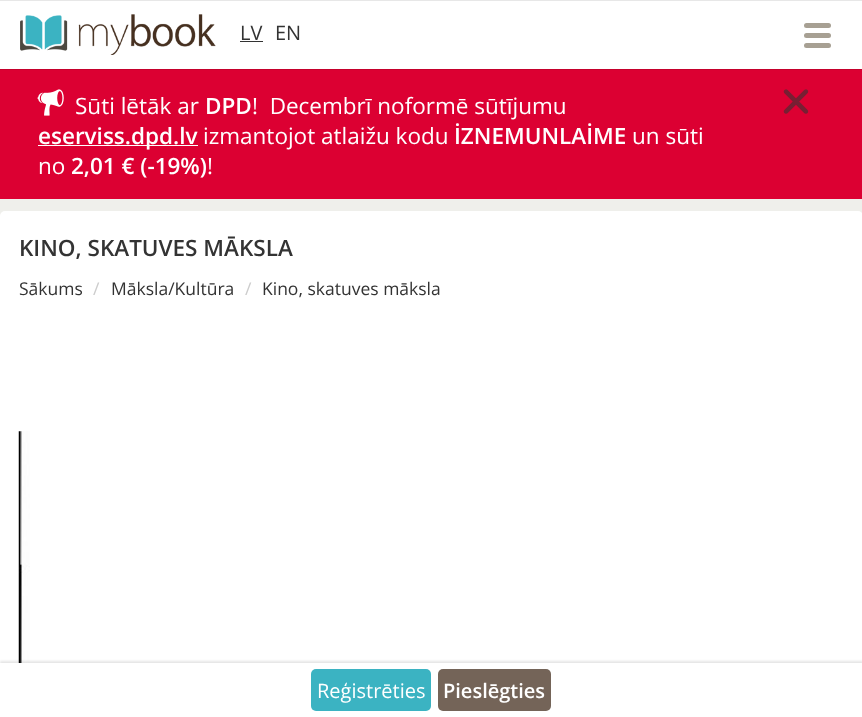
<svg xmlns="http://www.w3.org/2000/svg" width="862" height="717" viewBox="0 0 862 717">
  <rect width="100%" height="100%" fill="#efefeb"/>
  <path d="M0 69h862v130H0z" fill="#dc0032"/>
  <path d="M0 1h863v69H0z" fill="#0000001a" filter="blur(0.5px)"/>
  <path d="M0 1h862v68H0z" fill="#fff"/>
  <path d="M0 0h862v1H0z" fill="#e7e7e7"/>
  <image x="20" y="14" width="196" height="41" href="img/1.png"/>
  <path d="M240 41h23v1H240z" fill="#333"/>
  <rect x="804" y="23" width="27" height="5" rx="2.5" fill="#a7a093"/>
  <rect x="804" y="33" width="27" height="5" rx="2.5" fill="#a7a093"/>
  <rect x="804" y="43" width="27" height="5" rx="2.5" fill="#a7a093"/>
  <image x="37" y="89" width="27" height="27" href="img/2.png"/>
  <path d="M38 145h160v1H38z" fill="#fff"/>
  <image x="783" y="89" width="26" height="25" href="img/3.png"/>
  <rect y="211" width="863" height="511" rx="5" fill="#fff"/>
  <image x="18" y="431" width="12" height="232" href="img/4.png"/>
  <path d="M0 661h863v55H0z" fill="#0000001a" filter="blur(1px)"/>
  <path d="M0 663h862v54H0z" fill="#fff"/>
  <rect x="311" y="669" width="120" height="42" rx="5" fill="#3bb3c2"/>
  <rect x="438" y="669" width="113" height="42" rx="5" fill="#746458"/>
  <g font-family="Open Sans" font-size="20" fill="#333">
    <text x="240" y="40">LV</text>
    <text x="275" y="40">EN</text>
  </g>
  <text x="75" y="114" font-family="Open Sans" font-size="22.5" fill="#fff">Sūti lētāk ar</text>
  <text x="205" y="114" font-family="Open Sans" font-size="22.5" font-weight="600" fill="#fff">DPD</text>
  <text x="252" y="114" font-family="Open Sans" font-size="22.5" fill="#fff" xml:space="preserve">!  Decembrī noformē sūtījumu</text>
  <text x="38" y="144" font-family="Open Sans" font-size="22.5" font-weight="600" fill="#fff">eserviss.dpd.lv</text>
  <text x="203" y="144" font-family="Open Sans" font-size="22.5" fill="#fff">izmantojot atlaižu kodu</text>
  <text x="454" y="144" font-family="Open Sans" font-size="22.5" font-weight="600" fill="#fff">İZNEMUNLAİME</text>
  <g font-family="Open Sans" font-size="22.5" fill="#fff">
    <text x="632" y="144">un sūti</text>
    <text x="38" y="174">no</text>
  </g>
  <text x="71" y="174" font-family="Open Sans" font-size="22.5" font-weight="600" fill="#fff">2,01 € (-19%)</text>
  <text x="207" y="174" font-family="Open Sans" font-size="22.5" fill="#fff">!</text>
  <text x="19" y="256" font-family="Open Sans" font-size="22.5" font-weight="600" fill="#333">KINO, SKATUVES MĀKSLA</text>
  <text x="19" y="295" font-family="Open Sans" font-size="17.5" fill="#333">Sākums</text>
  <text x="93" y="295" font-family="Open Sans" font-size="17.5" fill="#ccc">/</text>
  <text x="111" y="295" font-family="Open Sans" font-size="17.5" fill="#333">Māksla/Kultūra</text>
  <text x="245" y="295" font-family="Open Sans" font-size="17.5" fill="#ccc">/</text>
  <text x="262" y="295" font-family="Open Sans" font-size="17.5" fill="#333">Kino, skatuves māksla</text>
  <text x="317" y="698" font-family="Open Sans" font-size="20" fill="#fff">Reģistrēties</text>
  <text x="443" y="698" font-family="Open Sans" font-size="20" font-weight="600" fill="#fff">Pieslēgties</text>
</svg>
